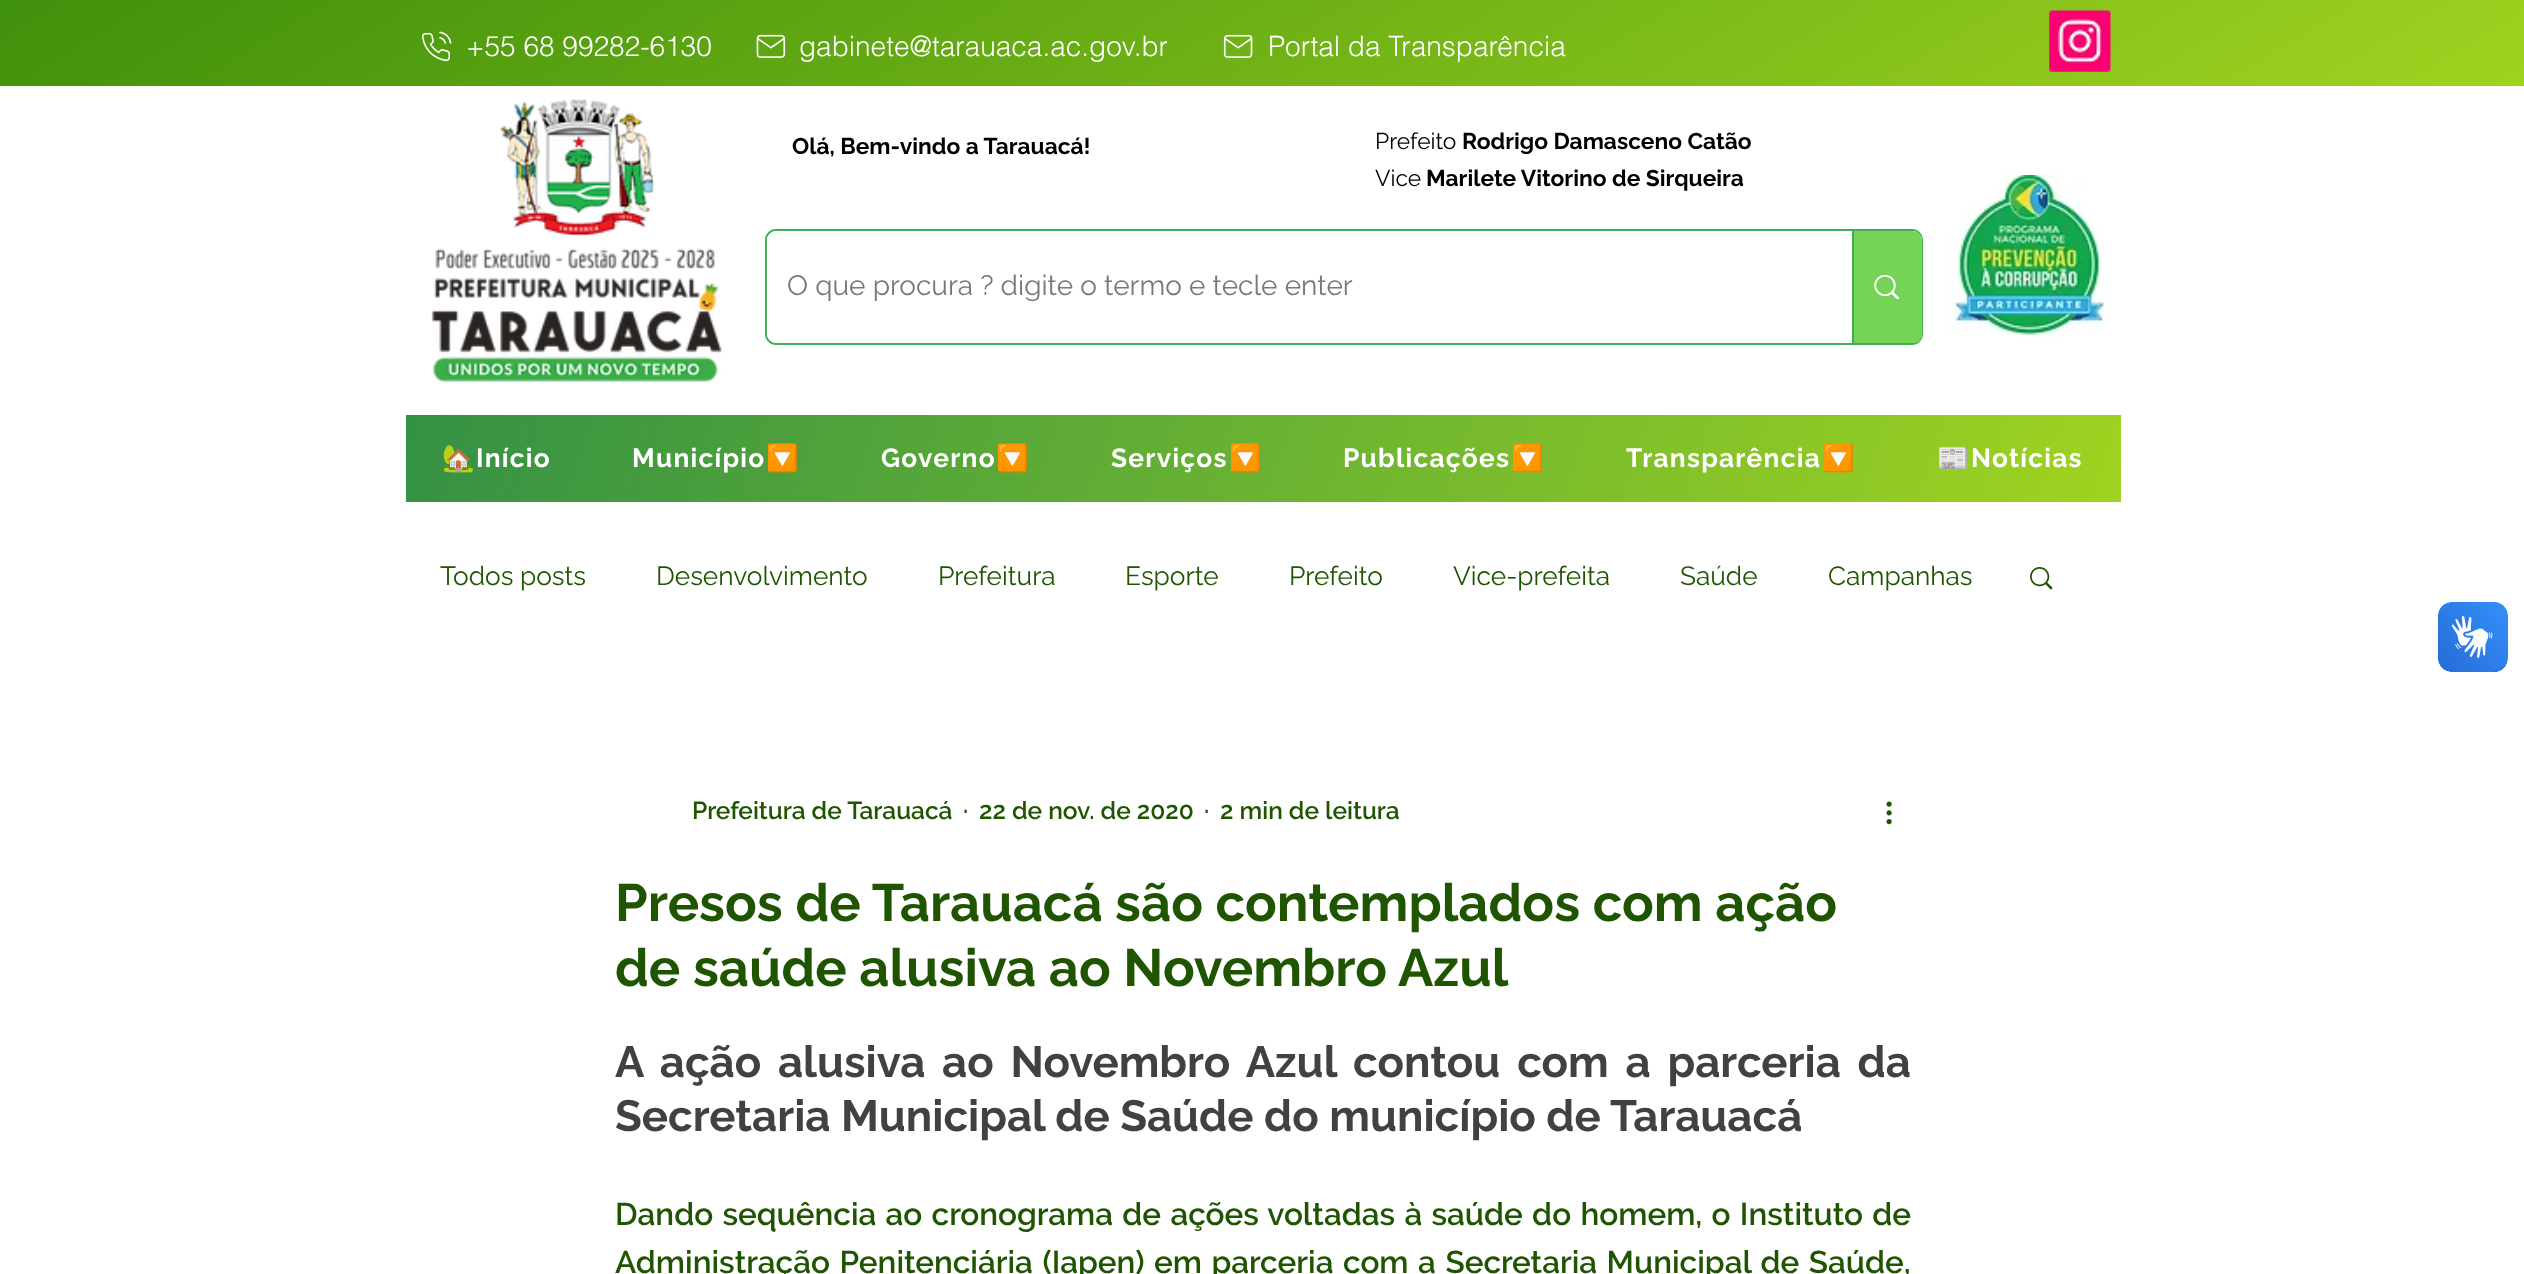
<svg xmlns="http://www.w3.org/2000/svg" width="2524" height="1274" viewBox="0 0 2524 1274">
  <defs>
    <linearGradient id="g1" gradientUnits="userSpaceOnUse" x1="909" y1="-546" x2="1616" y2="632"><stop offset="0" stop-color="#3f900c"/><stop offset="1" stop-color="#a0d320"/></linearGradient>
    <linearGradient id="g2" gradientUnits="userSpaceOnUse" x1="2044" y1="727" x2="483" y2="190"><stop offset="0" stop-color="#a0d320"/><stop offset="1" stop-color="#349144"/></linearGradient>
    <clipPath id="clip1"><path d="M788 270h990v33H788z"/></clipPath>
  </defs>
  <rect width="100%" height="100%" fill="#fff"/>
  <path d="M0 0h2524v86H0z" fill="url(#g1)"/>
  <image x="422" y="31" width="30" height="31" href="img/1.png"/>
  <image x="756" y="34" width="30" height="24" href="img/2.png"/>
  <image x="1223" y="34" width="30" height="24" href="img/3.png"/>
  <image x="2049" y="10" width="62" height="62" href="img/4.png"/>
  <image x="431" y="99" width="291" height="283" href="img/5.png"/>
  <rect x="766" y="230" width="1156" height="114" rx="10" fill="none" stroke="#3fb052" stroke-width="2"/>
  <rect x="767" y="231" width="1155" height="112" rx="9" fill="#fff"/>
  <path d="M1852 231H1913C1918 231 1922 235 1922 240V334C1922 339 1918 343 1913 343H1852Z" fill="#75d355"/>
  <path d="M1852 231h2v112H1852z" fill="#3fb052"/>
  <image x="1874" y="275" width="26" height="24" href="img/6.png"/>
  <image x="1950" y="175" width="155" height="162" href="img/7.png"/>
  <path d="M406 415h1715v87H406z" fill="url(#g2)"/>
  <image x="2030" y="567" width="23" height="23" href="img/8.png"/>
  <image x="1886" y="801" width="6" height="24" href="img/9.png"/>
  <image x="2437" y="602" width="71" height="70" href="img/10.png"/>
  <image x="2438" y="602" width="70" height="70" href="img/11.png"/>
  <g font-family="helvetica" font-size="28" font-weight="300" fill="#fff">
    <text x="466" y="56">+55 68 99282-6130</text>
    <text x="799" y="56">gabinete@tarauaca.ac.gov.br</text>
    <text x="1268" y="56">Portal da Transparência</text>
  </g>
  <text x="792" y="154" font-family="Raleway" font-size="22.75" font-weight="bold" fill="#000">Olá, Bem-vindo a Tarauacá!</text>
  <text x="1375" y="149" font-family="Raleway" font-size="22.75" fill="#000">Prefeito</text>
  <text x="1462" y="149" font-family="Raleway" font-size="22.75" font-weight="bold" fill="#000">Rodrigo Damasceno Catão</text>
  <g clip-path="url(#clip1)">
    <text x="787" y="295" font-family="Raleway" font-size="28" fill="#787878">O que procura ? digite o termo e tecle enter</text>
  </g>
  <text x="1375" y="186" font-family="Raleway" font-size="22.75" fill="#000">Vice</text>
  <text x="1426" y="186" font-family="Raleway" font-size="22.75" font-weight="bold" fill="#000">Marilete Vitorino de Sirqueira</text>
  <text x="442" y="467" font-family="Noto Color Emoji" font-size="26.25" font-weight="bold" letter-spacing="1.25" fill="#fff">🏡</text>
  <g font-family="Raleway" font-size="26.25" font-weight="bold" letter-spacing="1.25" fill="#fff">
    <text x="476" y="467">Início</text>
    <text x="632" y="467">Município</text>
  </g>
  <text x="766" y="467" font-family="Noto Color Emoji" font-size="26.25" font-weight="bold" letter-spacing="1.25" fill="#fff">🔽</text>
  <text x="881" y="467" font-family="Raleway" font-size="26.25" font-weight="bold" letter-spacing="1.25" fill="#fff">Governo</text>
  <text x="996" y="467" font-family="Noto Color Emoji" font-size="26.25" font-weight="bold" letter-spacing="1.25" fill="#fff">🔽</text>
  <text x="1111" y="467" font-family="Raleway" font-size="26.25" font-weight="bold" letter-spacing="1.25" fill="#fff">Serviços</text>
  <text x="1229" y="467" font-family="Noto Color Emoji" font-size="26.25" font-weight="bold" letter-spacing="1.25" fill="#fff">🔽</text>
  <text x="1343" y="467" font-family="Raleway" font-size="26.25" font-weight="bold" letter-spacing="1.25" fill="#fff">Publicações</text>
  <text x="1511" y="467" font-family="Noto Color Emoji" font-size="26.25" font-weight="bold" letter-spacing="1.25" fill="#fff">🔽</text>
  <text x="1626" y="467" font-family="Raleway" font-size="26.25" font-weight="bold" letter-spacing="1.25" fill="#fff">Transparência</text>
  <g font-family="Noto Color Emoji" font-size="26.25" font-weight="bold" letter-spacing="1.25" fill="#fff">
    <text x="1822" y="467">🔽</text>
    <text x="1937" y="467">📰</text>
  </g>
  <text x="1971" y="467" font-family="Raleway" font-size="26.25" font-weight="bold" letter-spacing="1.25" fill="#fff">Notícias</text>
  <g font-family="Raleway" font-size="26.25" fill="#1f5500">
    <text x="440" y="585">Todos posts</text>
    <text x="656" y="585">Desenvolvimento</text>
    <text x="938" y="585">Prefeitura</text>
    <text x="1125" y="585">Esporte</text>
    <text x="1289" y="585">Prefeito</text>
    <text x="1453" y="585">Vice-prefeita</text>
    <text x="1680" y="585">Saúde</text>
    <text x="1828" y="585">Campanhas</text>
  </g>
  <g font-family="Raleway" font-size="24.5" font-weight="600" fill="#1f5500">
    <text x="692" y="819">Prefeitura de Tarauacá</text>
    <text x="963" y="819">·</text>
    <text x="979" y="819">22 de nov. de 2020</text>
    <text x="1204" y="819">·</text>
    <text x="1220" y="819">2 min de leitura</text>
  </g>
  <g font-family="Raleway" font-size="52.5" font-weight="bold" fill="#1f5500">
    <text x="615" y="921">Presos de Tarauacá são contemplados com ação</text>
    <text x="615" y="986">de saúde alusiva ao Novembro Azul</text>
  </g>
  <g font-family="Raleway" font-size="43.75" font-weight="bold" fill="#414141">
    <text x="615" y="1077" word-spacing="6.25">A ação alusiva ao Novembro Azul contou com a parceria da</text>
    <text x="615" y="1131">Secretaria Municipal de Saúde do município de Tarauacá</text>
  </g>
  <g font-family="Raleway" font-size="31.5" font-weight="600" fill="#1f5500">
    <text x="615" y="1225" word-spacing="1.5">Dando sequência ao cronograma de ações voltadas à saúde do homem, o Instituto de</text>
    <text x="615" y="1273" word-spacing="1.75">Administração Penitenciária (Iapen) em parceria com a Secretaria Municipal de Saúde,</text>
  </g>
</svg>
